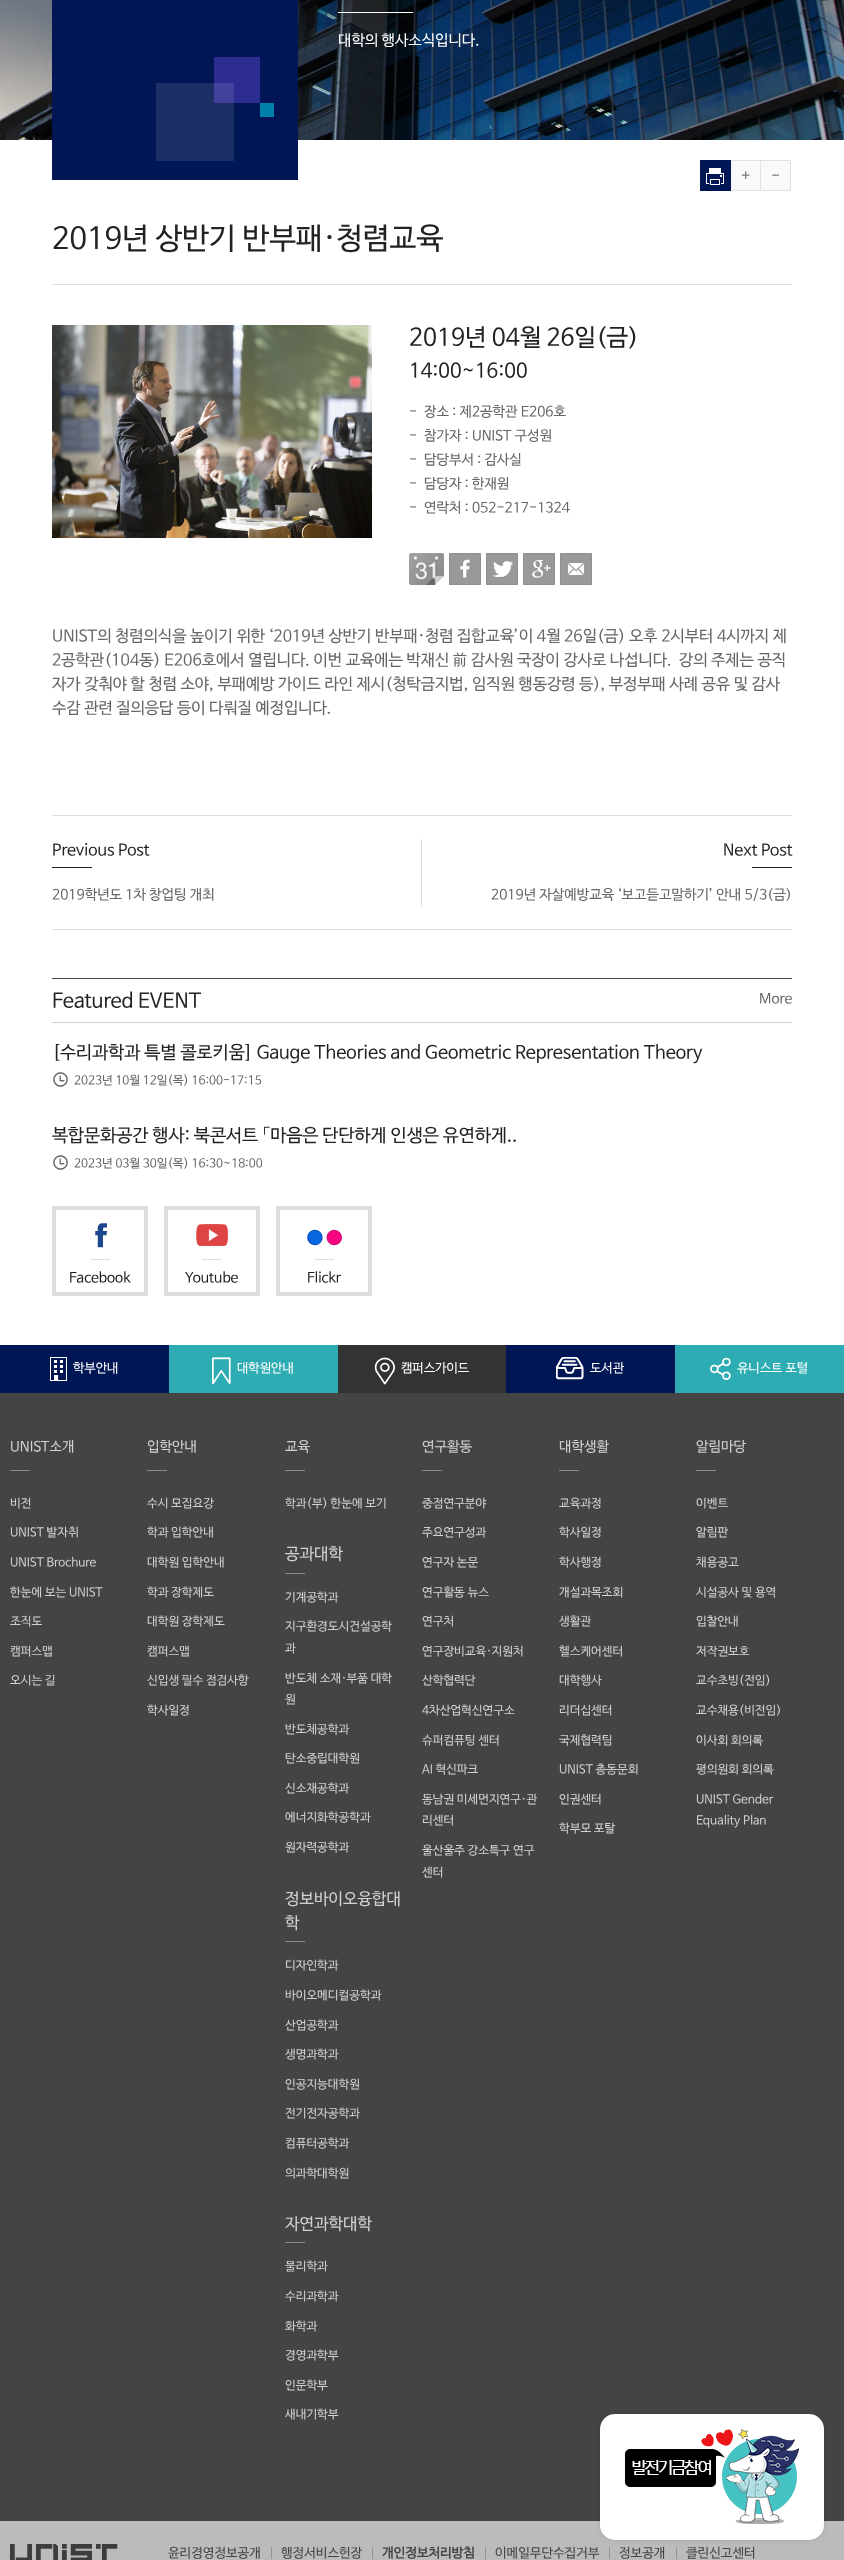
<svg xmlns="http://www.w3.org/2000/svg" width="844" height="2560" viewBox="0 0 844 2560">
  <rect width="100%" height="100%" fill="#fff"/>
  <image x="0" y="0" width="844" height="140" href="img/1.png"/>
  <image x="52" y="0" width="246" height="180" href="img/2.png"/>
  <path d="M338 12h75v1H338z" fill="#fff"/>
  <path d="M730.5 160.5h30v30H730.5z" fill="#f9f9f9" stroke="#e1e1e1"/>
  <image x="700" y="160" width="31" height="31" href="img/3.png"/>
  <path d="M760.5 160.5h30v30H760.5z" fill="#f9f9f9" stroke="#e1e1e1"/>
  <path d="M52 284h740v1H52z" fill="#ddd"/>
  <image x="52" y="325" width="320" height="213" href="img/4.png"/>
  <image x="409" y="553" width="35" height="32" href="img/5.png"/>
  <image x="409" y="555" width="26" height="30" href="img/6.png"/>
  <image x="449" y="553" width="32" height="32" href="img/7.png"/>
  <image x="449" y="553" width="32" height="32" href="img/8.png"/>
  <image x="486" y="553" width="32" height="32" href="img/9.png"/>
  <image x="486" y="553" width="32" height="32" href="img/10.png"/>
  <image x="523" y="553" width="32" height="32" href="img/11.png"/>
  <image x="523" y="553" width="32" height="32" href="img/12.png"/>
  <image x="560" y="553" width="32" height="32" href="img/13.png"/>
  <image x="560" y="553" width="32" height="32" href="img/14.png"/>
  <path d="M52 815h740v1H52z" fill="#ddd"/>
  <path d="M52 929h740v1H52z" fill="#ddd"/>
  <path d="M421 839h1v67H421z" fill="#ddd"/>
  <path d="M52 867h40v1H52z" fill="#222"/>
  <path d="M752 867h40v1H752z" fill="#222"/>
  <path d="M52 978h740v1H52z" fill="#444"/>
  <path d="M52 1022h740v1H52z" fill="#d0d0d0"/>
  <image x="53" y="1072" width="15" height="15" href="img/15.png"/>
  <image x="53" y="1155" width="15" height="15" href="img/15.png"/>
  <path d="M54 1208h92v86H54z" fill="none" stroke="#ddd" stroke-width="4"/>
  <image x="91" y="1223" width="19" height="37" href="img/16.png"/>
  <path d="M166 1208h92v86H166z" fill="none" stroke="#ddd" stroke-width="4"/>
  <image x="196" y="1224" width="32" height="36" href="img/17.png"/>
  <path d="M278 1208h92v86H278z" fill="none" stroke="#ddd" stroke-width="4"/>
  <image x="307" y="1229" width="35" height="31" href="img/18.png"/>
  <path d="M0 1345h169v48H0z" fill="#011655"/>
  <image x="50" y="1357" width="17" height="24" href="img/19.png"/>
  <path d="M169 1345h169v48H169z" fill="#2eacb4"/>
  <image x="212" y="1357" width="19" height="28" href="img/20.png"/>
  <path d="M338 1345h168v48H338z" fill="#333"/>
  <image x="374" y="1357" width="21" height="28" href="img/21.png"/>
  <path d="M506 1345h169v48H506z" fill="#011655"/>
  <image x="556" y="1357" width="28" height="23" href="img/22.png"/>
  <path d="M675 1345h169v48H675z" fill="#2eacb4"/>
  <image x="710" y="1357" width="21" height="23" href="img/23.png"/>
  <path d="M0 1393h844v1128H0z" fill="#444"/>
  <path d="M10 1470h20v1H10z" fill="#8b8b8b"/>
  <path d="M147 1470h20v1H147z" fill="#8b8b8b"/>
  <path d="M285 1470h20v1H285z" fill="#8b8b8b"/>
  <path d="M285 1573h20v1H285z" fill="#8b8b8b"/>
  <path d="M285 1941h20v1H285z" fill="#8b8b8b"/>
  <path d="M285 2242h20v1H285z" fill="#8b8b8b"/>
  <path d="M422 1470h20v1H422z" fill="#8b8b8b"/>
  <path d="M559 1470h20v1H559z" fill="#8b8b8b"/>
  <path d="M696 1470h20v1H696z" fill="#8b8b8b"/>
  <path d="M0 2521h844v39H0z" fill="#bbb"/>
  <image x="10" y="2544" width="108" height="16" href="img/24.png"/>
  <path d="M271 2547h1v12H271z" fill="#939393"/>
  <path d="M372 2547h1v12H372z" fill="#939393"/>
  <path d="M485 2547h1v12H485z" fill="#939393"/>
  <path d="M609 2547h1v12H609z" fill="#939393"/>
  <path d="M676 2547h1v12H676z" fill="#939393"/>
  <rect x="600" y="2414" width="224" height="126" rx="15" fill="#0000001a" filter="blur(2.5px)"/>
  <rect x="600" y="2414" width="224" height="126" rx="15" fill="#fff"/>
  <image x="625" y="2429" width="174" height="95" href="img/25.png"/>
  <text x="338" y="45" font-family="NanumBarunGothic" font-size="15" fill="#fff">대학의 행사소식입니다.</text>
  <g font-family="NanumBarunGothic" font-size="16" fill="#787a86">
    <text x="741" y="181">+</text>
    <text x="771" y="181">-</text>
  </g>
  <text x="52" y="248" font-family="NanumBarunGothic" font-size="30" fill="#222">2019년 상반기 반부패·청렴교육</text>
  <text x="409" y="345" font-family="NanumBarunGothic" font-size="24" fill="#222">2019년 04월 26일(금)</text>
  <text x="409" y="377" font-family="NanumBarunGothic" font-size="20" fill="#222">14:00~16:00</text>
  <g font-family="NanumBarunGothic" font-size="14" fill="#666">
    <text x="409" y="416">-</text>
    <text x="424" y="416">장소 : 제2공학관 E206호</text>
    <text x="409" y="440">-</text>
    <text x="424" y="440">참가자 : UNIST 구성원</text>
    <text x="409" y="464">-</text>
    <text x="424" y="464">담당부서 : 감사실</text>
    <text x="409" y="488">-</text>
    <text x="424" y="488">담당자 : 한재원</text>
    <text x="409" y="512">-</text>
    <text x="424" y="512">연락처 : 052-217-1324</text>
  </g>
  <g font-family="NanumBarunGothic" font-size="16" fill="#666">
    <text x="52" y="641">UNIST의 청렴의식을 높이기 위한 ‘2019년 상반기 반부패·청렴 집합교육’이 4월 26일(금) 오후 2시부터 4시까지 제</text>
    <text x="52" y="665" xml:space="preserve">2공학관(104동) E206호에서 열립니다. 이번 교육에는 박재신 前 감사원 국장이 강사로 나섭니다.  강의 주제는 공직</text>
    <text x="52" y="689">자가 갖춰야 할 청렴 소야, 부패예방 가이드 라인 제시(청탁금지법, 임직원 행동강령 등), 부정부패 사례 공유 및 감사</text>
    <text x="52" y="713">수감 관련 질의응답 등이 다뤄질 예정입니다.</text>
  </g>
  <text x="52" y="855" font-family="NanumBarunGothic" font-size="16" fill="#222">Previous Post</text>
  <text x="52" y="899" font-family="NanumBarunGothic" font-size="14" fill="#666">2019학년도 1차 창업팅 개최</text>
  <text x="723" y="855" font-family="NanumBarunGothic" font-size="16" fill="#222">Next Post</text>
  <text x="491" y="899" font-family="NanumBarunGothic" font-size="14" fill="#666">2019년 자살예방교육 ‘보고듣고말하기’ 안내 5/3(금)</text>
  <text x="52" y="1007" font-family="NanumBarunGothic" font-size="20" fill="#222">Featured EVENT</text>
  <text x="759" y="1003" font-family="NanumBarunGothic" font-size="14" fill="#666">More</text>
  <text x="52" y="1058" font-family="NanumBarunGothic" font-size="18" fill="#222">[수리과학과 특별 콜로키움] Gauge Theories and Geometric Representation Theory</text>
  <text x="74" y="1084" font-family="NanumBarunGothic" font-size="12" fill="#666">2023년 10월 12일(목) 16:00-17:15</text>
  <text x="52" y="1141" font-family="NanumBarunGothic" font-size="18" fill="#222">복합문화공간 행사: 북콘서트 「마음은 단단하게 인생은 유연하게..</text>
  <text x="74" y="1167" font-family="NanumBarunGothic" font-size="12" fill="#666">2023년 03월 30일(목) 16:30~18:00</text>
  <g font-family="NanumBarunGothic" font-size="14" fill="#222">
    <text x="69" y="1282">Facebook</text>
    <text x="185" y="1282">Youtube</text>
    <text x="307" y="1282">Flickr</text>
  </g>
  <g font-family="NanumBarunGothic" font-size="12.75" fill="#fff">
    <text x="73" y="1372">학부안내</text>
    <text x="237" y="1372">대학원안내</text>
    <text x="401" y="1372">캠퍼스가이드</text>
    <text x="590" y="1372">도서관</text>
    <text x="737" y="1372">유니스트 포털</text>
  </g>
  <text x="10" y="1451" font-family="NanumBarunGothic" font-size="14" fill="#d1d1d1">UNIST소개</text>
  <g font-family="NanumBarunGothic" font-size="12" fill="#d1d1d1">
    <text x="10" y="1507">비전</text>
    <text x="10" y="1536">UNIST 발자취</text>
    <text x="10" y="1566">UNIST Brochure</text>
    <text x="10" y="1596">한눈에 보는 UNIST</text>
    <text x="10" y="1625">조직도</text>
    <text x="10" y="1655">캠퍼스맵</text>
    <text x="10" y="1684">오시는 길</text>
  </g>
  <text x="147" y="1451" font-family="NanumBarunGothic" font-size="14" fill="#d1d1d1">입학안내</text>
  <g font-family="NanumBarunGothic" font-size="12" fill="#d1d1d1">
    <text x="147" y="1507">수시 모집요강</text>
    <text x="147" y="1536">학과 입학안내</text>
    <text x="147" y="1566">대학원 입학안내</text>
    <text x="147" y="1596">학과 장학제도</text>
    <text x="147" y="1625">대학원 장학제도</text>
    <text x="147" y="1655">캠퍼스맵</text>
    <text x="147" y="1684">신입생 필수 점검사항</text>
    <text x="147" y="1714">학사일정</text>
  </g>
  <text x="285" y="1451" font-family="NanumBarunGothic" font-size="14" fill="#d1d1d1">교육</text>
  <text x="285" y="1507" font-family="NanumBarunGothic" font-size="12" fill="#d1d1d1">학과(부) 한눈에 보기</text>
  <text x="285" y="1559" font-family="NanumBarunGothic" font-size="16.25" fill="#d1d1d1">공과대학</text>
  <g font-family="NanumBarunGothic" font-size="12" fill="#d1d1d1">
    <text x="285" y="1601">기계공학과</text>
    <text x="285" y="1630">지구환경도시건설공학</text>
    <text x="285" y="1652">과</text>
    <text x="285" y="1682">반도체 소재·부품 대학</text>
    <text x="285" y="1703">원</text>
    <text x="285" y="1733">반도체공학과</text>
    <text x="285" y="1762">탄소중립대학원</text>
    <text x="285" y="1792">신소재공학과</text>
    <text x="285" y="1821">에너지화학공학과</text>
    <text x="285" y="1851">원자력공학과</text>
  </g>
  <g font-family="NanumBarunGothic" font-size="16.25" fill="#d1d1d1">
    <text x="285" y="1904">정보바이오융합대</text>
    <text x="285" y="1928">학</text>
  </g>
  <g font-family="NanumBarunGothic" font-size="12" fill="#d1d1d1">
    <text x="285" y="1969">디자인학과</text>
    <text x="285" y="1999">바이오메디컬공학과</text>
    <text x="285" y="2029">산업공학과</text>
    <text x="285" y="2058">생명과학과</text>
    <text x="285" y="2088">인공지능대학원</text>
    <text x="285" y="2117">전기전자공학과</text>
    <text x="285" y="2147">컴퓨터공학과</text>
    <text x="285" y="2177">의과학대학원</text>
  </g>
  <text x="285" y="2229" font-family="NanumBarunGothic" font-size="16.25" fill="#d1d1d1">자연과학대학</text>
  <g font-family="NanumBarunGothic" font-size="12" fill="#d1d1d1">
    <text x="285" y="2270">물리학과</text>
    <text x="285" y="2300">수리과학과</text>
    <text x="285" y="2330">화학과</text>
    <text x="285" y="2359">경영과학부</text>
    <text x="285" y="2389">인문학부</text>
    <text x="285" y="2418">새내기학부</text>
  </g>
  <text x="422" y="1451" font-family="NanumBarunGothic" font-size="14" fill="#d1d1d1">연구활동</text>
  <g font-family="NanumBarunGothic" font-size="12" fill="#d1d1d1">
    <text x="422" y="1507">중점연구분야</text>
    <text x="422" y="1536">주요연구성과</text>
    <text x="422" y="1566">연구자 논문</text>
    <text x="422" y="1596">연구활동 뉴스</text>
    <text x="422" y="1625">연구처</text>
    <text x="422" y="1655">연구장비교육·지원처</text>
    <text x="422" y="1684">산학협력단</text>
    <text x="422" y="1714">4차산업혁신연구소</text>
    <text x="422" y="1744">슈퍼컴퓨팅 센터</text>
    <text x="422" y="1773">AI 혁신파크</text>
    <text x="422" y="1803">동남권 미세먼지연구·관</text>
    <text x="422" y="1824">리센터</text>
    <text x="422" y="1854">울산울주 강소특구 연구</text>
    <text x="422" y="1876">센터</text>
  </g>
  <text x="559" y="1451" font-family="NanumBarunGothic" font-size="14" fill="#d1d1d1">대학생활</text>
  <g font-family="NanumBarunGothic" font-size="12" fill="#d1d1d1">
    <text x="559" y="1507">교육과정</text>
    <text x="559" y="1536">학사일정</text>
    <text x="559" y="1566">학사행정</text>
    <text x="559" y="1596">개설과목조회</text>
    <text x="559" y="1625">생활관</text>
    <text x="559" y="1655">헬스케어센터</text>
    <text x="559" y="1684">대학행사</text>
    <text x="559" y="1714">리더십센터</text>
    <text x="559" y="1744">국제협력팀</text>
    <text x="559" y="1773">UNIST 총동문회</text>
    <text x="559" y="1803">인권센터</text>
    <text x="559" y="1832">학부모 포탈</text>
  </g>
  <text x="696" y="1451" font-family="NanumBarunGothic" font-size="14" fill="#d1d1d1">알림마당</text>
  <g font-family="NanumBarunGothic" font-size="12" fill="#d1d1d1">
    <text x="696" y="1507">이벤트</text>
    <text x="696" y="1536">알림판</text>
    <text x="696" y="1566">채용공고</text>
    <text x="696" y="1596">시설공사 및 용역</text>
    <text x="696" y="1625">입찰안내</text>
    <text x="696" y="1655">저작권보호</text>
    <text x="696" y="1684">교수초빙(전임)</text>
    <text x="696" y="1714">교수채용(비전임)</text>
    <text x="696" y="1744">이사회 회의록</text>
    <text x="696" y="1773">평의원회 회의록</text>
    <text x="696" y="1803">UNIST Gender</text>
    <text x="696" y="1824">Equality Plan</text>
  </g>
  <g font-family="NanumBarunGothic" font-size="13" fill="#444">
    <text x="168" y="2557">윤리경영정보공개</text>
    <text x="281" y="2557">행정서비스헌장</text>
  </g>
  <text x="382" y="2557" font-family="NanumBarunGothic" font-size="13" font-weight="bold" fill="#444">개인정보처리방침</text>
  <g font-family="NanumBarunGothic" font-size="13" fill="#444">
    <text x="495" y="2557">이메일무단수집거부</text>
    <text x="619" y="2557">정보공개</text>
    <text x="686" y="2557">클린신고센터</text>
  </g>
</svg>
